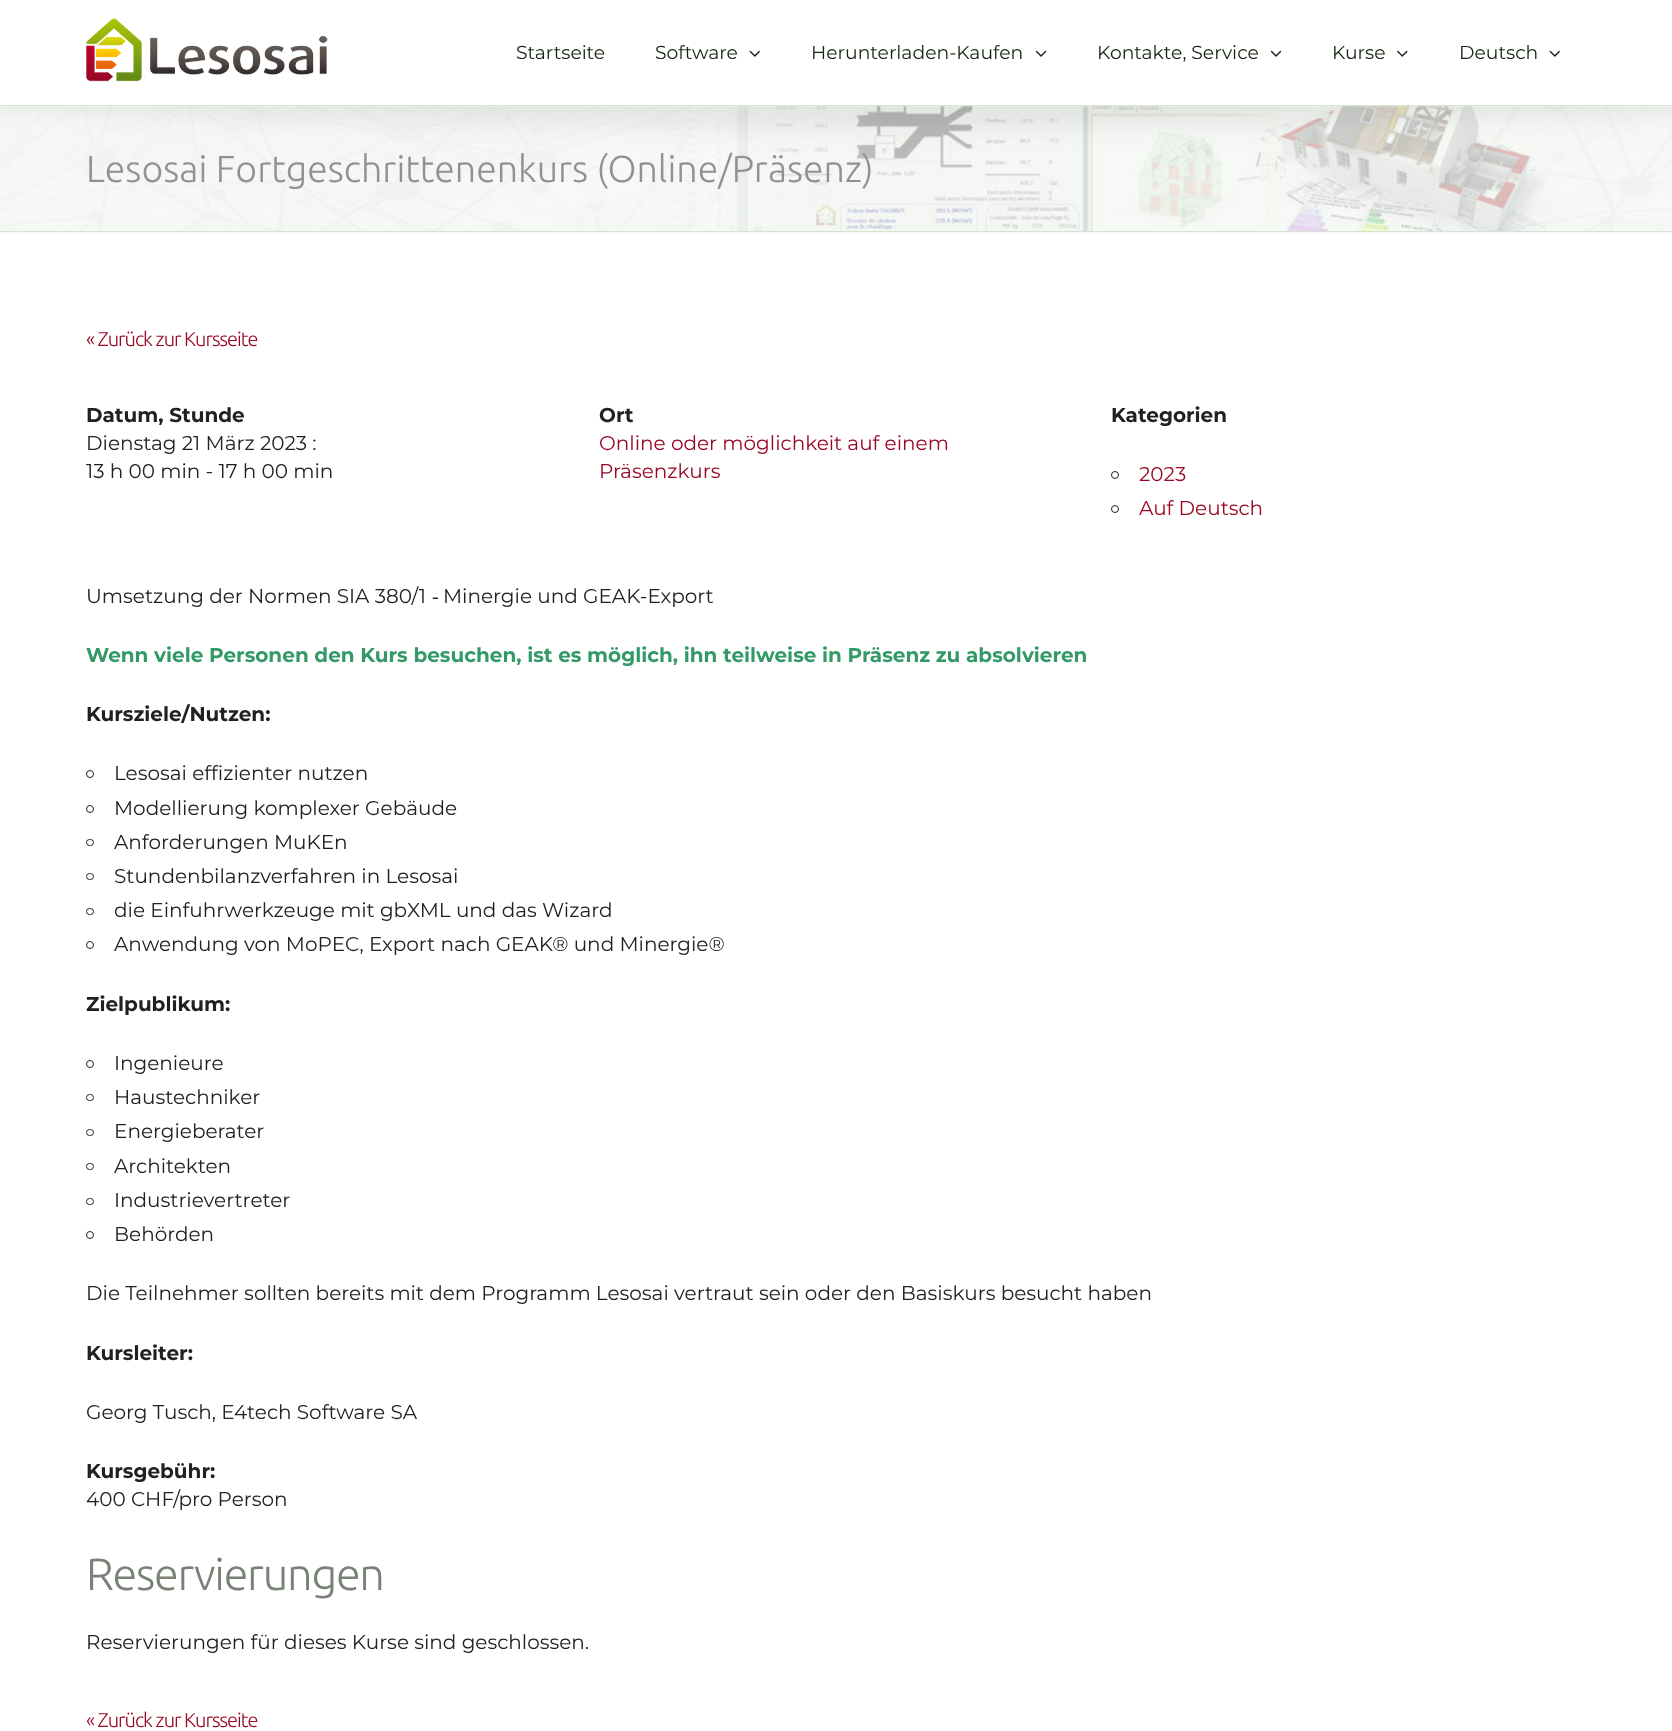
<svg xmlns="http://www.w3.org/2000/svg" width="1672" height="1731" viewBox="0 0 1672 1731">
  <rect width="100%" height="100%" fill="#fff"/>
  <image x="86" y="18" width="242" height="64" href="img/1.png"/>
  <image x="749" y="50" width="11" height="7" href="img/2.png"/>
  <image x="1035" y="50" width="12" height="7" href="img/3.png"/>
  <image x="1270" y="50" width="12" height="7" href="img/3.png"/>
  <image x="1397" y="50" width="11" height="7" href="img/4.png"/>
  <image x="1549" y="50" width="11" height="7" href="img/2.png"/>
  <path d="M0 106h1672v127H0z" fill="#f6f9f5"/>
  <image x="0" y="106" width="1672" height="125" href="img/5.png"/>
  <path d="M0 105h1672v1H0z" fill="#d5e4d0"/>
  <path d="M0 231h1672v1H0z" fill="#d5e4d0"/>
  <circle cx="1115" cy="475" r="3.5" fill="none" stroke="#212121"/>
  <circle cx="1115" cy="509" r="3.5" fill="none" stroke="#212121"/>
  <circle cx="90" cy="774" r="3.5" fill="none" stroke="#212121"/>
  <circle cx="90" cy="809" r="3.5" fill="none" stroke="#212121"/>
  <rect x="86.5" y="839.5" width="7" height="6" rx="3" fill="none" stroke="#212121"/>
  <rect x="86.5" y="873.5" width="7" height="6" rx="3" fill="none" stroke="#212121"/>
  <rect x="86.5" y="908.5" width="7" height="6" rx="3" fill="none" stroke="#212121"/>
  <circle cx="90" cy="945" r="3.5" fill="none" stroke="#212121"/>
  <circle cx="90" cy="1064" r="3.5" fill="none" stroke="#212121"/>
  <rect x="86.5" y="1094.5" width="7" height="6" rx="3" fill="none" stroke="#212121"/>
  <rect x="86.5" y="1129.5" width="7" height="6" rx="3" fill="none" stroke="#212121"/>
  <rect x="86.5" y="1163.5" width="7" height="6" rx="3" fill="none" stroke="#212121"/>
  <rect x="86.5" y="1198.5" width="7" height="6" rx="3" fill="none" stroke="#212121"/>
  <circle cx="90" cy="1235" r="3.5" fill="none" stroke="#212121"/>
  <g font-family="Montserrat" font-size="18.75" fill="#162511">
    <text x="516" y="59">Startseite</text>
    <text x="655" y="59">Software</text>
    <text x="811" y="59">Herunterladen-Kaufen</text>
    <text x="1097" y="59">Kontakte, Service</text>
    <text x="1332" y="59">Kurse</text>
    <text x="1459" y="59">Deutsch</text>
  </g>
  <text x="86" y="182" font-family="Ubuntu" font-size="37.5" font-weight="300" fill="#8f928e">Lesosai Fortgeschrittenenkurs (Online/Präsenz)</text>
  <text x="86" y="346" font-family="Ubuntu" font-size="20" font-weight="300" letter-spacing="-1" fill="#990824">« Zurück zur Kursseite</text>
  <text x="86" y="422" font-family="Montserrat" font-size="20" font-weight="bold" fill="#212121">Datum, Stunde</text>
  <g font-family="Montserrat" font-size="20" fill="#212121">
    <text x="86" y="450">Dienstag 21 März 2023 :</text>
    <text x="86" y="478">13 h 00 min - 17 h 00 min</text>
  </g>
  <text x="599" y="422" font-family="Montserrat" font-size="20" font-weight="bold" fill="#212121">Ort</text>
  <g font-family="Montserrat" font-size="20" fill="#990824">
    <text x="599" y="450">Online oder möglichkeit auf einem</text>
    <text x="599" y="478">Präsenzkurs</text>
  </g>
  <text x="1111" y="422" font-family="Montserrat" font-size="20" font-weight="bold" fill="#212121">Kategorien</text>
  <g font-family="Montserrat" font-size="20" fill="#990824">
    <text x="1139" y="481">2023</text>
    <text x="1139" y="515">Auf Deutsch</text>
  </g>
  <text x="86" y="603" font-family="Montserrat" font-size="20" fill="#212121">Umsetzung der Normen SIA 380/1</text>
  <text x="432" y="603" font-family="Liberation Serif" font-size="20" fill="#212121">‐</text>
  <text x="443" y="603" font-family="Montserrat" font-size="20" fill="#212121">Minergie und GEAK-Export</text>
  <text x="86" y="662" font-family="Montserrat" font-size="20" font-weight="bold" fill="#396">Wenn viele Personen den Kurs besuchen, ist es möglich, ihn teilweise in Präsenz zu absolvieren</text>
  <text x="86" y="721" font-family="Montserrat" font-size="20" font-weight="bold" fill="#212121">Kursziele/Nutzen:</text>
  <g font-family="Montserrat" font-size="20" fill="#212121">
    <text x="114" y="780">Lesosai effizienter nutzen</text>
    <text x="114" y="815">Modellierung komplexer Gebäude</text>
    <text x="114" y="849">Anforderungen MuKEn</text>
    <text x="114" y="883">Stundenbilanzverfahren in Lesosai</text>
    <text x="114" y="917">die Einfuhrwerkzeuge mit gbXML und das Wizard</text>
    <text x="114" y="951">Anwendung von MoPEC, Export nach GEAK® und Minergie®</text>
  </g>
  <text x="86" y="1011" font-family="Montserrat" font-size="20" font-weight="bold" fill="#212121">Zielpublikum:</text>
  <g font-family="Montserrat" font-size="20" fill="#212121">
    <text x="114" y="1070">Ingenieure</text>
    <text x="114" y="1104">Haustechniker</text>
    <text x="114" y="1138">Energieberater</text>
    <text x="114" y="1173">Architekten</text>
    <text x="114" y="1207">Industrievertreter</text>
    <text x="114" y="1241">Behörden</text>
    <text x="86" y="1300">Die Teilnehmer sollten bereits mit dem Programm Lesosai vertraut sein oder den Basiskurs besucht haben</text>
  </g>
  <text x="86" y="1360" font-family="Montserrat" font-size="20" font-weight="bold" fill="#212121">Kursleiter:</text>
  <text x="86" y="1419" font-family="Montserrat" font-size="20" fill="#212121">Georg Tusch, E4tech Software SA</text>
  <text x="86" y="1478" font-family="Montserrat" font-size="20" font-weight="bold" fill="#212121">Kursgebühr:</text>
  <text x="86" y="1506" font-family="Montserrat" font-size="20" fill="#212121">400 CHF/pro Person</text>
  <text x="86" y="1590" font-family="Ubuntu" font-size="45" font-weight="300" letter-spacing="-1.25" fill="#798276">Reservierungen</text>
  <text x="86" y="1649" font-family="Montserrat" font-size="20" fill="#212121">Reservierungen für dieses Kurse sind geschlossen.</text>
  <text x="86" y="1727" font-family="Ubuntu" font-size="20" font-weight="300" letter-spacing="-1" fill="#990824">« Zurück zur Kursseite</text>
</svg>
